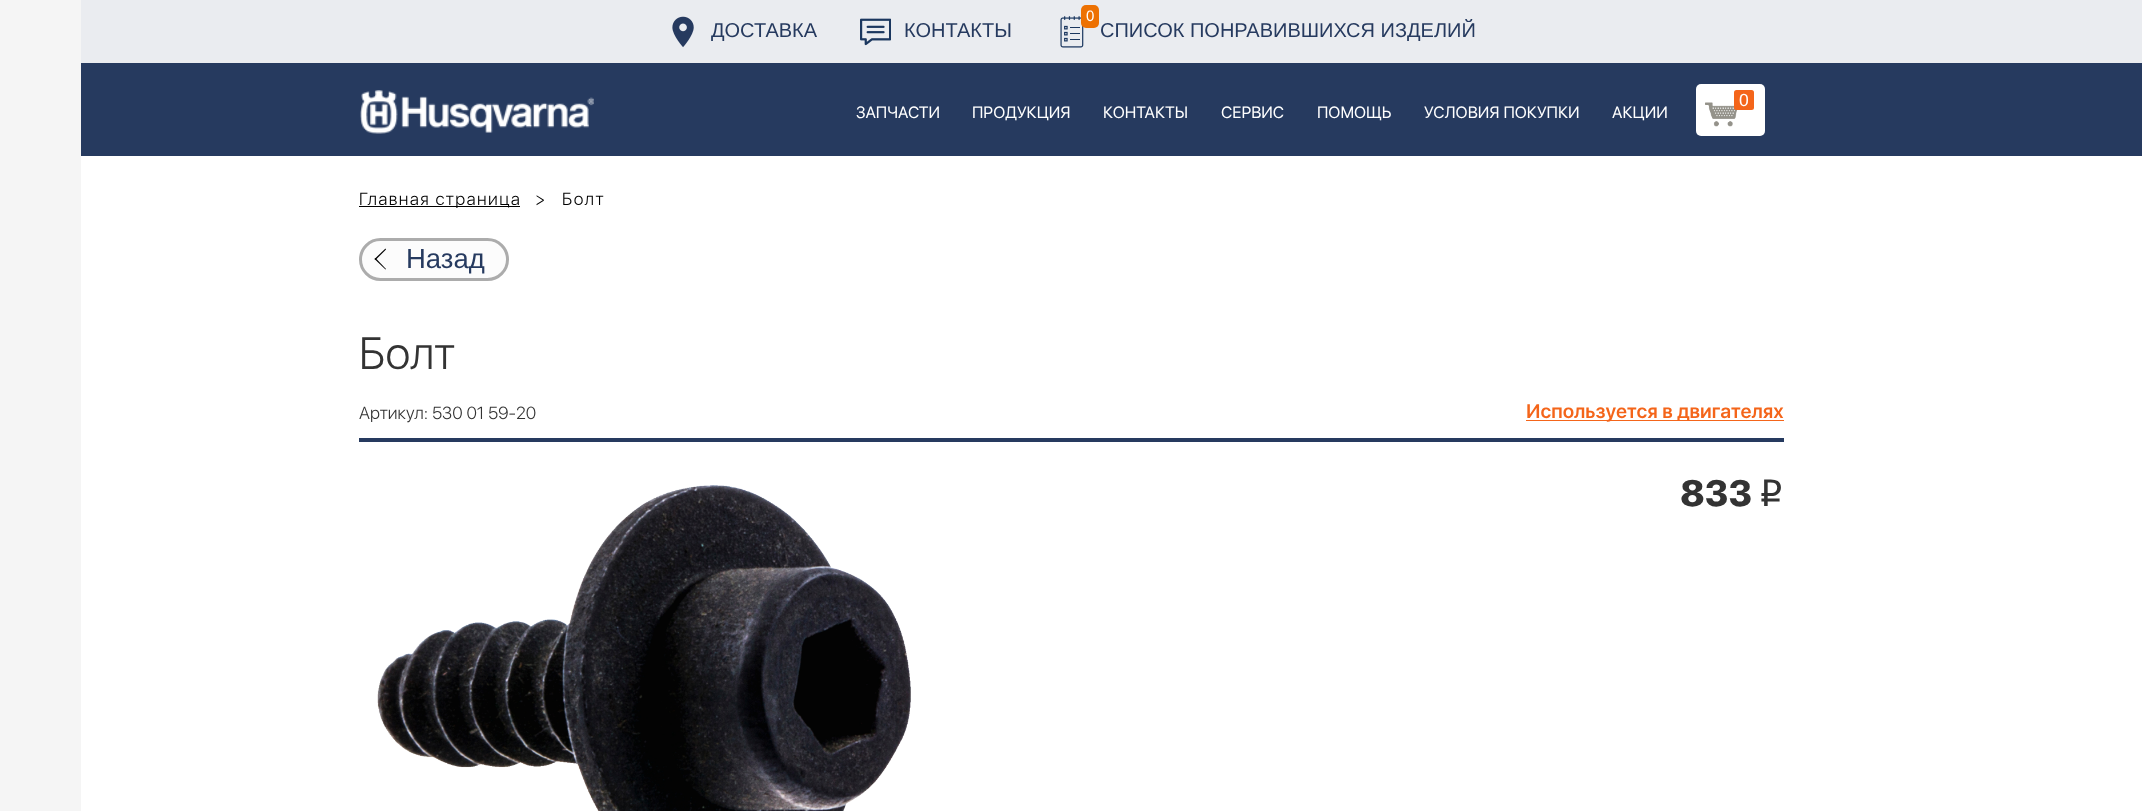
<svg xmlns="http://www.w3.org/2000/svg" width="2142" height="811" viewBox="0 0 2142 811">
  <rect width="100%" height="100%" fill="#fff"/>
  <path d="M0 0h81v811H0z" fill="#f5f5f5"/>
  <path d="M81 0h2061v63H81z" fill="#eaecf0"/>
  <image x="672" y="16" width="22" height="32" href="img/1.png"/>
  <image x="860" y="18" width="31" height="28" href="img/2.png"/>
  <image x="1060" y="16" width="24" height="32" href="img/3.png"/>
  <rect x="1081" y="5" width="18" height="23" rx="5" fill="#ed7102"/>
  <path d="M81 63h2061v93H81z" fill="#263a5f"/>
  <image x="360" y="90" width="234" height="44" href="img/4.png"/>
  <rect x="1696" y="84" width="69" height="52" rx="5" fill="#fff"/>
  <image x="1705" y="102" width="32" height="25" href="img/5.png"/>
  <rect x="1734" y="90" width="20" height="20" rx="2.5" fill="#f4651a"/>
  <path d="M359 206h161v1H359z" fill="#000"/>
  <rect x="360.5" y="239.5" width="147" height="40" rx="20" fill="#fcfcfc" stroke="#acacac" stroke-width="3"/>
  <path d="M374.5 259L385.5 248.5L386 249.5L375.5 260Z" fill="#000"/>
  <path d="M374.5 259L375.5 258L386 269L385.5 269.5Z" fill="#000"/>
  <path d="M1526 420h258v1H1526z" fill="#f4651a"/>
  <path d="M359 438h1425v4H359z" fill="#263a5f"/>
  <image x="377" y="485" width="534" height="326" href="img/6.png"/>
  <g font-family="Liberation Sans" font-size="20" fill="#263a5f">
    <text x="711" y="37">ДОСТАВКА</text>
    <text x="904" y="37">КОНТАКТЫ</text>
  </g>
  <text x="1086" y="21" font-family="Liberation Sans" font-size="15" fill="#fff">0</text>
  <text x="1100" y="37" font-family="Liberation Sans" font-size="20" fill="#263a5f">СПИСОК ПОНРАВИВШИХСЯ ИЗДЕЛИЙ</text>
  <text x="1739" y="106" font-family="Liberation Sans" font-size="17.5" fill="#fff">0</text>
  <g font-family="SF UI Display" font-size="16.25" fill="#fff">
    <text x="856" y="118">ЗАПЧАСТИ</text>
    <text x="972" y="118">ПРОДУКЦИЯ</text>
    <text x="1103" y="118">КОНТАКТЫ</text>
    <text x="1221" y="118">СЕРВИС</text>
    <text x="1317" y="118">ПОМОЩЬ</text>
    <text x="1424" y="118">УСЛОВИЯ ПОКУПКИ</text>
    <text x="1612" y="118">АКЦИИ</text>
  </g>
  <g font-family="SF UI Display" font-size="17.5" font-weight="300" letter-spacing="1.4" fill="#000">
    <text x="359" y="205">Главная страница</text>
    <text x="535" y="205">&gt;</text>
    <text x="562" y="205">Болт</text>
  </g>
  <text x="406" y="268" font-family="Liberation Sans" font-size="27.5" fill="#263a5f">Назад</text>
  <text x="359" y="369" font-family="SF UI Display" font-size="45" font-weight="300" fill="#333">Болт</text>
  <text x="359" y="419" font-family="SF UI Display" font-size="17.5" font-weight="300" fill="#333">Артикул: 530 01 59-20</text>
  <text x="1526" y="418" font-family="SF UI Display" font-size="20" font-weight="600" fill="#f4651a">Используется в двигателях</text>
  <text x="1680" y="506" font-family="SF UI Display" font-size="38" font-weight="900" fill="#333">833</text>
  <text x="1758" y="506" font-family="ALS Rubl" font-size="38" fill="#333">i</text>
</svg>
